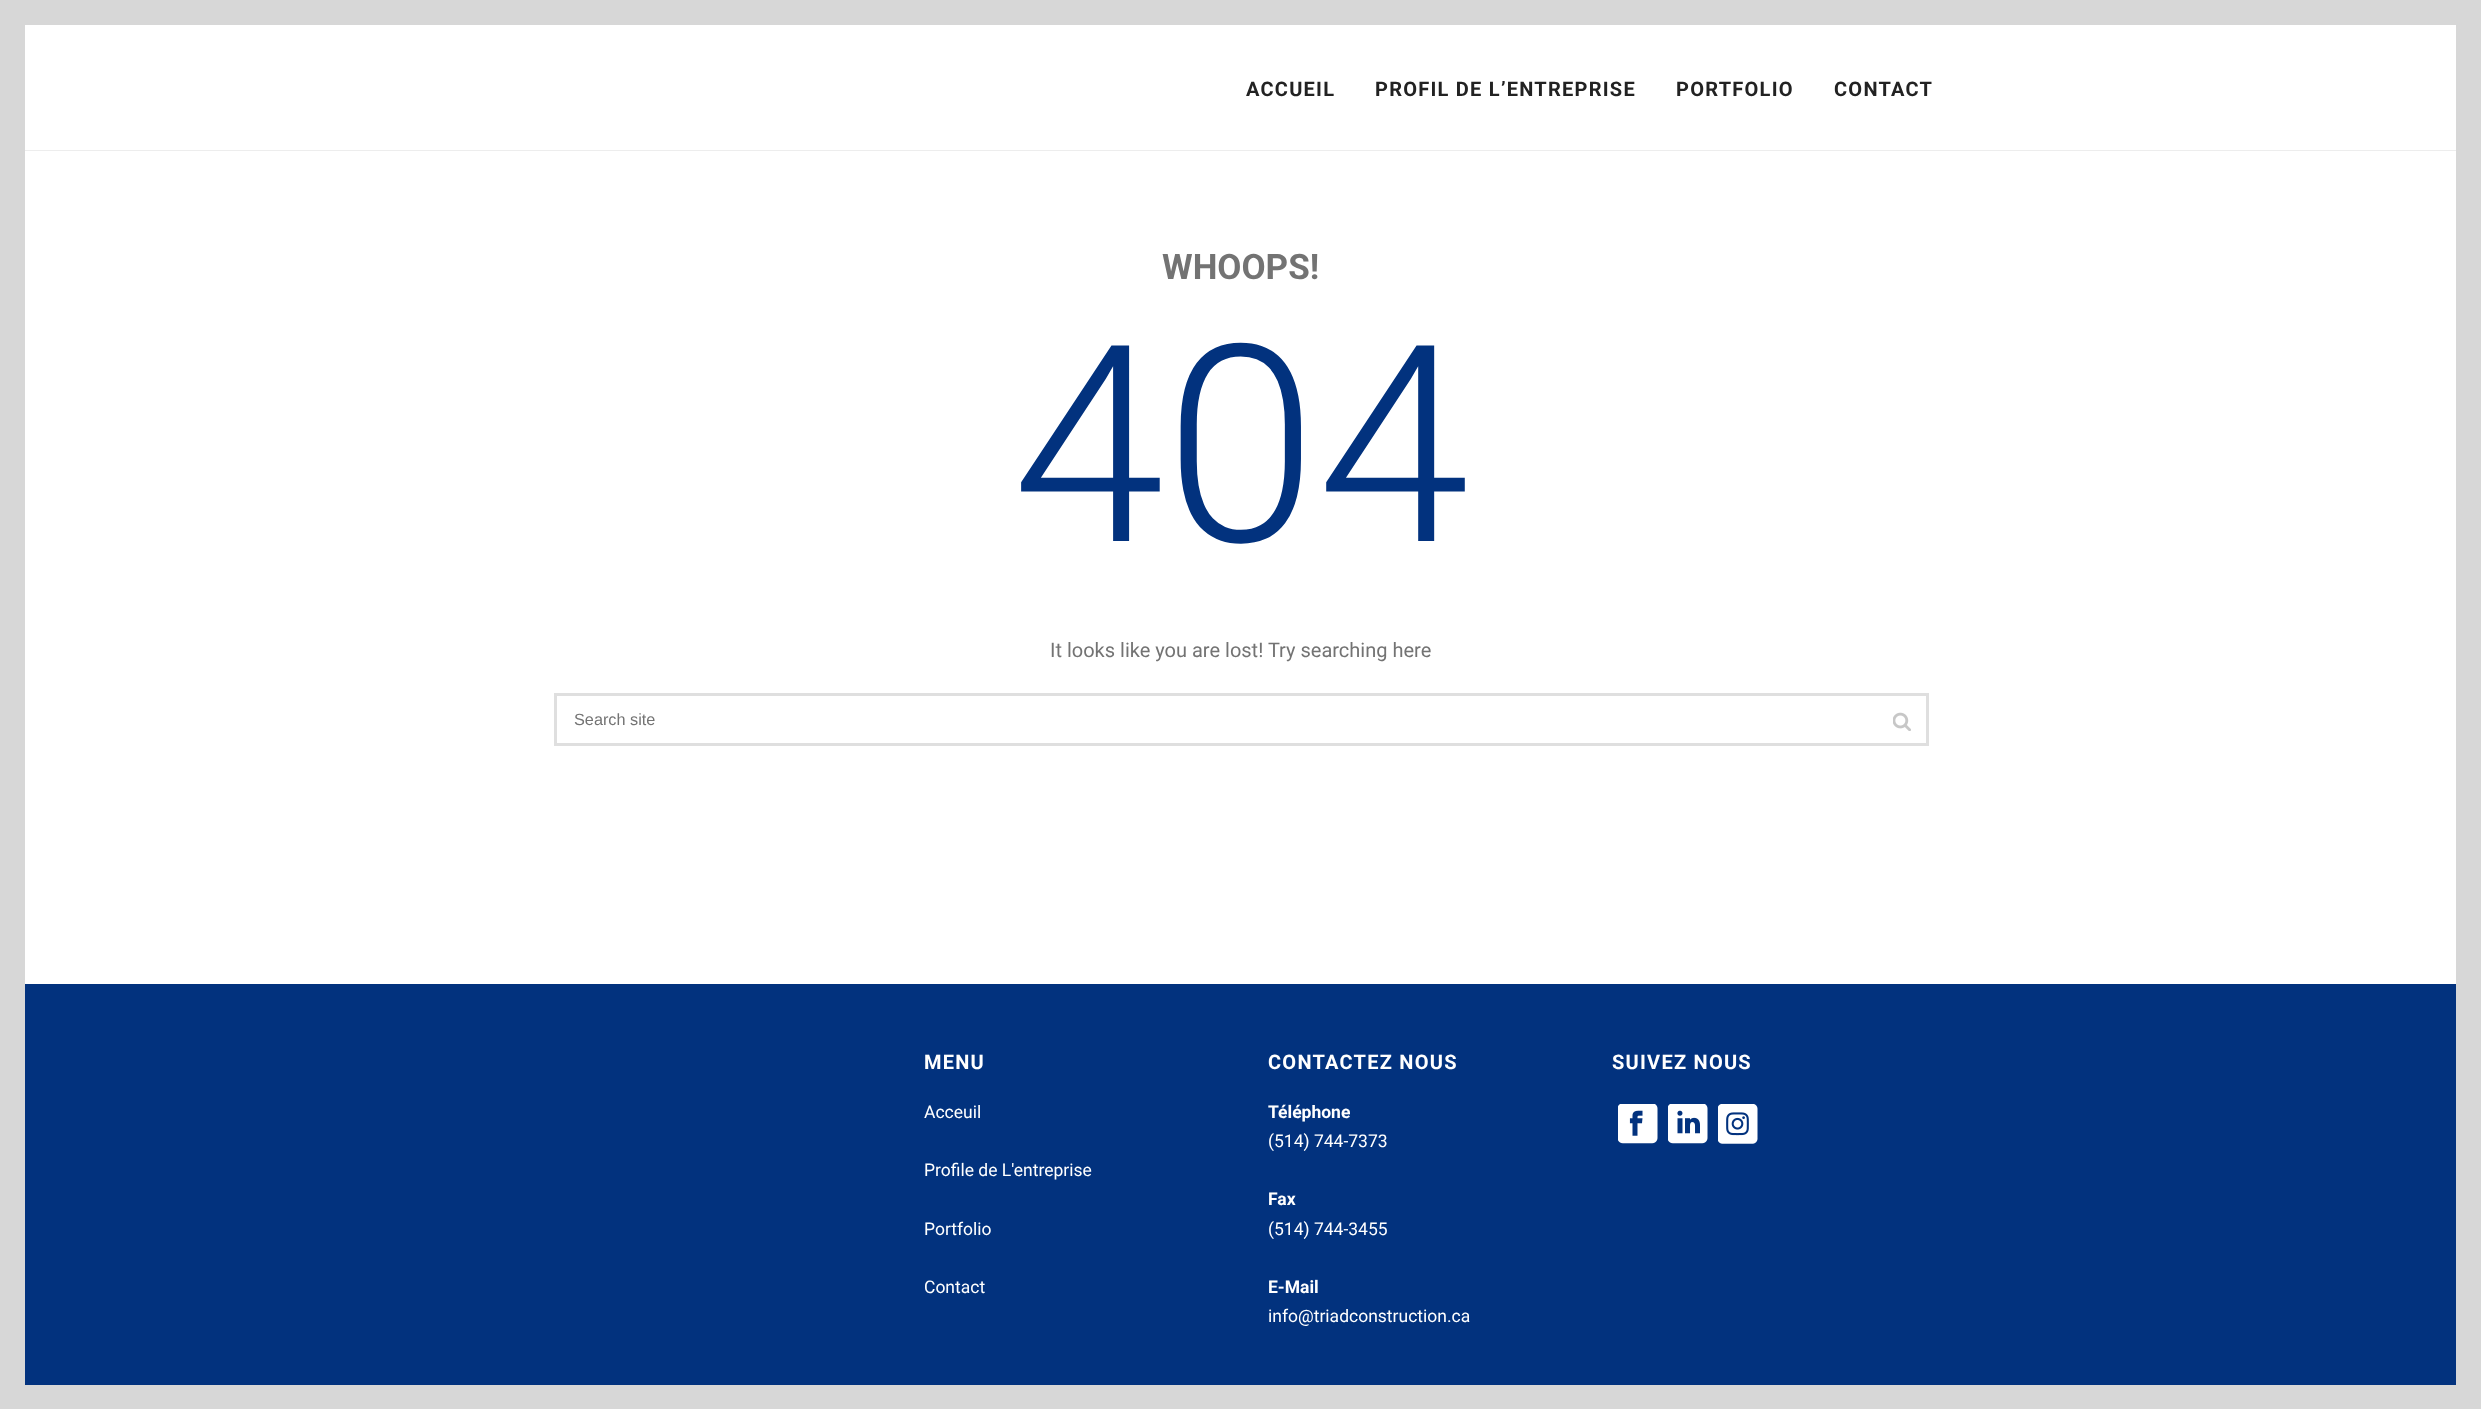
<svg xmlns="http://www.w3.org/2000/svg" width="2481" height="1409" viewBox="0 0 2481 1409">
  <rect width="100%" height="100%" fill="#fff"/>
  <path d="M0 0h25v1385H0z" fill="#d7d7d7"/>
  <path d="M25 0h2431v25H25z" fill="#d7d7d7"/>
  <path d="M2456 0h25v1385H2456z" fill="#d7d7d7"/>
  <path d="M25 150h2431v1H25z" fill="#ededed"/>
  <path d="M555.5 694.5h1372v50H555.5z" fill="none" stroke="#dfdfdf" stroke-width="3"/>
  <image x="1893" y="712" width="18" height="19" href="img/1.png"/>
  <path d="M25 984h2431v401H25z" fill="#02327e"/>
  <image x="1618" y="1104" width="40" height="40" href="img/2.png"/>
  <image x="1668" y="1104" width="40" height="40" href="img/3.png"/>
  <image x="1718" y="1104" width="40" height="40" href="img/4.png"/>
  <path d="M0 1385h2481v24H0z" fill="#d7d7d7"/>
  <g font-family="Roboto" font-size="20" font-weight="bold" letter-spacing="1.25" fill="#222">
    <text x="1246" y="96">ACCUEIL</text>
    <text x="1375" y="96">PROFIL DE L’ENTREPRISE</text>
    <text x="1676" y="96">PORTFOLIO</text>
    <text x="1834" y="96">CONTACT</text>
  </g>
  <text x="1162" y="279" font-family="Roboto" font-size="35" font-weight="bold" fill="#737373">WHOOPS!</text>
  <text x="1012" y="541" font-family="Roboto" font-size="275" font-weight="300" fill="#02327e">404</text>
  <text x="1050" y="657" font-family="Roboto" font-size="20" fill="#737373">It looks like you are lost! Try searching here</text>
  <text x="574" y="725" font-family="Liberation Sans" font-size="16.25" fill="#737373">Search site</text>
  <text x="924" y="1069" font-family="Roboto" font-size="20" font-weight="bold" letter-spacing="1.25" fill="#fff">MENU</text>
  <g font-family="Roboto" font-size="17.5" fill="#fff">
    <text x="924" y="1118">Acceuil</text>
    <text x="924" y="1176">Profile de L'entreprise</text>
    <text x="924" y="1235">Portfolio</text>
    <text x="924" y="1293">Contact</text>
  </g>
  <text x="1268" y="1069" font-family="Roboto" font-size="20" font-weight="bold" letter-spacing="1.25" fill="#fff">CONTACTEZ NOUS</text>
  <text x="1268" y="1118" font-family="Roboto" font-size="17.5" font-weight="bold" fill="#fff">Téléphone</text>
  <text x="1268" y="1147" font-family="Roboto" font-size="17.5" fill="#fff">(514) 744-7373</text>
  <text x="1268" y="1205" font-family="Roboto" font-size="17.5" font-weight="bold" fill="#fff">Fax</text>
  <text x="1268" y="1235" font-family="Roboto" font-size="17.5" fill="#fff">(514) 744-3455</text>
  <text x="1268" y="1293" font-family="Roboto" font-size="17.5" font-weight="bold" fill="#fff">E-Mail</text>
  <text x="1268" y="1322" font-family="Roboto" font-size="17.5" fill="#fff">info@triadconstruction.ca</text>
  <text x="1612" y="1069" font-family="Roboto" font-size="20" font-weight="bold" letter-spacing="1.25" fill="#fff">SUIVEZ NOUS</text>
</svg>
